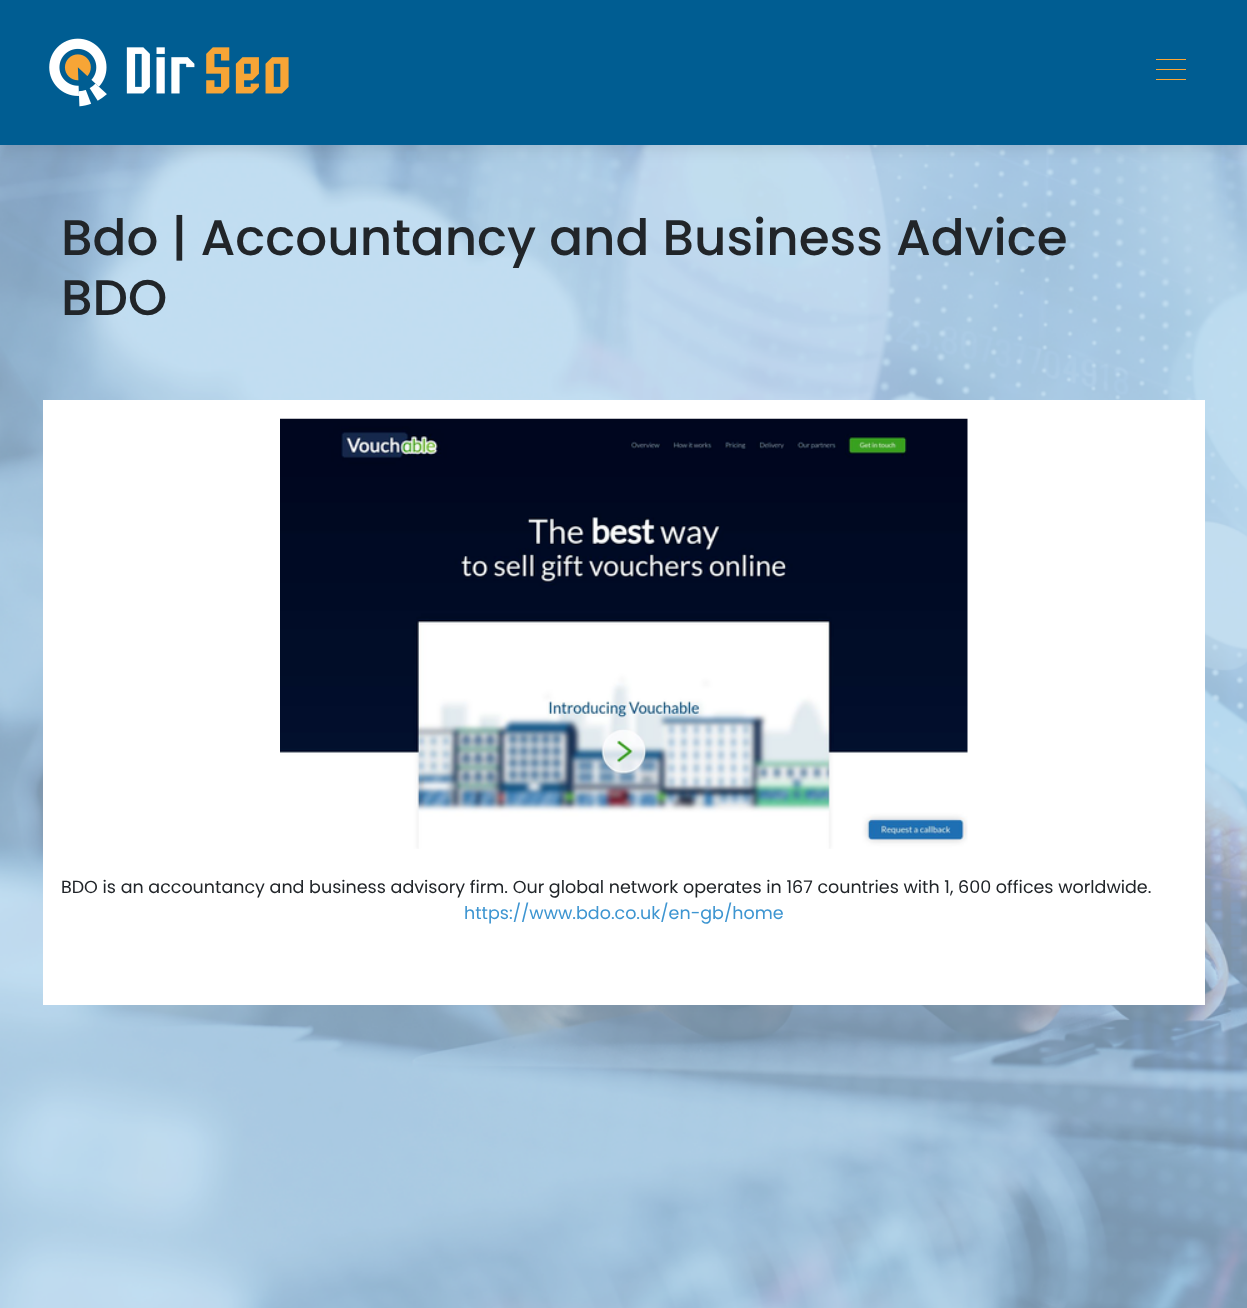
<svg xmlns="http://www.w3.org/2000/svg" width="1247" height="1308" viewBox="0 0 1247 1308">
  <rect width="100%" height="100%" fill="#fff"/>
  <image x="0" y="145" width="1247" height="1163" href="img/1.png"/>
  <path d="M0 3h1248v145H0z" fill="#0000001a" filter="blur(8px)"/>
  <path d="M0 0h1247v145H0z" fill="#005d92"/>
  <image x="49" y="38" width="240" height="69" href="img/2.png"/>
  <path d="M1156 59h30v1H1156z" fill="#faa634"/>
  <path d="M1156 69h30v1H1156z" fill="#faa634"/>
  <path d="M1156 79h30v1H1156z" fill="#faa634"/>
  <path d="M43 400h1162v605H43z" fill="#fff"/>
  <image x="280" y="418" width="688" height="431" href="img/3.png"/>
  <g font-family="Poppins" font-size="50" font-weight="500" fill="#212529">
    <text x="61" y="255">Bdo | Accountancy and Business Advice</text>
    <text x="61" y="315">BDO</text>
  </g>
  <text x="61" y="893" font-family="Poppins" font-size="17.5" fill="#212529">BDO is an accountancy and business advisory firm. Our global network operates in 167 countries with 1, 600 offices worldwide.</text>
  <text x="464" y="919" font-family="Poppins" font-size="17.5" fill="#3d95d1">https://www.bdo.co.uk/en-gb/home</text>
</svg>
